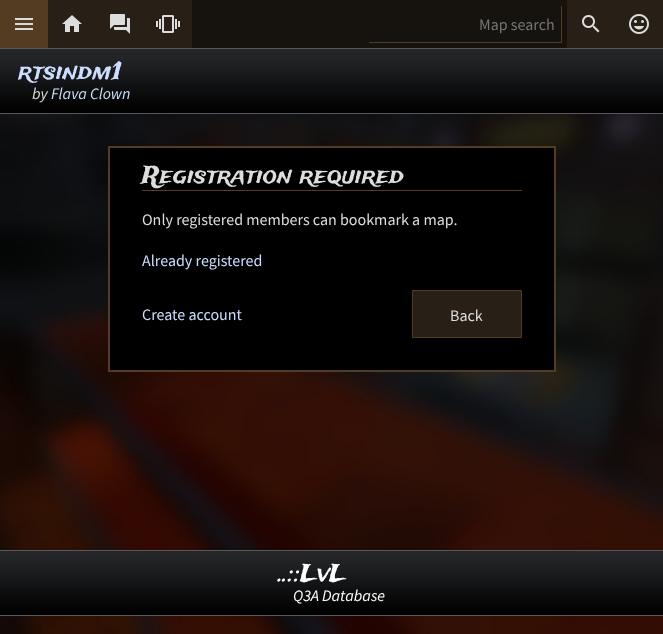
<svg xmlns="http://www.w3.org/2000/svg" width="663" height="634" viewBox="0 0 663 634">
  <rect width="100%" height="100%" fill="#fff"/>
  <path d="M192 0h375v48H192z" fill="#16130f"/>
  <path d="M0 0h48v48H0z" fill="#543c22"/>
  <image x="15" y="18" width="18" height="12" href="img/1.png"/>
  <path d="M48 0h144v48H48z" fill="#282016"/>
  <image x="62" y="15" width="20" height="17" href="img/2.png"/>
  <path d="M567 0h96v48H567z" fill="#282016"/>
  <image x="582" y="15" width="18" height="18" href="img/3.png"/>
  <image x="629" y="14" width="20" height="20" href="img/4.png"/>
  <image x="110" y="14" width="20" height="20" href="img/5.png"/>
  <image x="156" y="15" width="24" height="18" href="img/6.png"/>
  <path d="M561 6h1v37H561z" fill="#543c22"/>
  <path d="M369 42h193v1H369z" fill="#543c22"/>
  <image x="0" y="49" width="663" height="64" href="img/7.png"/>
  <path d="M0 48h663v1H0z" fill="#56585d"/>
  <path d="M0 113h663v1H0z" fill="#56585d"/>
  <image x="0" y="114" width="663" height="520" href="img/8.png"/>
  <path d="M109 147h446v224H109z" fill="#000" stroke="#543c22" stroke-width="2"/>
  <path d="M142 190h380v1H142z" fill="#543c22"/>
  <path d="M412.5 290.5h109v47H412.5z" fill="#282016" stroke="#543c22"/>
  <image x="0" y="551" width="663" height="64" href="img/7.png"/>
  <path d="M0 550h663v1H0z" fill="#56585d"/>
  <path d="M0 615h663v1H0z" fill="#56585d"/>
  <text x="479" y="30" font-family="Source Sans Pro" font-size="16" fill="#757575">Map search</text>
  <text x="18" y="79" font-family="Trade Winds" font-size="24" fill="#cdf">rtsindm1</text>
  <text x="32" y="99" font-family="Source Sans Pro" font-size="16" font-style="italic" fill="#ddd">by</text>
  <text x="51" y="99" font-family="Source Sans Pro" font-size="16" font-style="italic" fill="#cdf">Flava Clown</text>
  <text x="142" y="183" font-family="Trade Winds" font-size="24" fill="#ddd">Registration required</text>
  <text x="142" y="225" font-family="Source Sans Pro" font-size="16" fill="#ddd">Only registered members can bookmark a map.</text>
  <g font-family="Source Sans Pro" font-size="16" fill="#cdf">
    <text x="142" y="266">Already registered</text>
    <text x="142" y="320">Create account</text>
  </g>
  <text x="450" y="321" font-family="Source Sans Pro" font-size="16" fill="#ddd">Back</text>
  <text x="279" y="581" font-family="Trade Winds" font-size="24" fill="#fff">..::LvL</text>
  <text x="293" y="601" font-family="Source Sans Pro" font-size="16" font-style="italic" fill="#fff">Q3A Database</text>
</svg>
